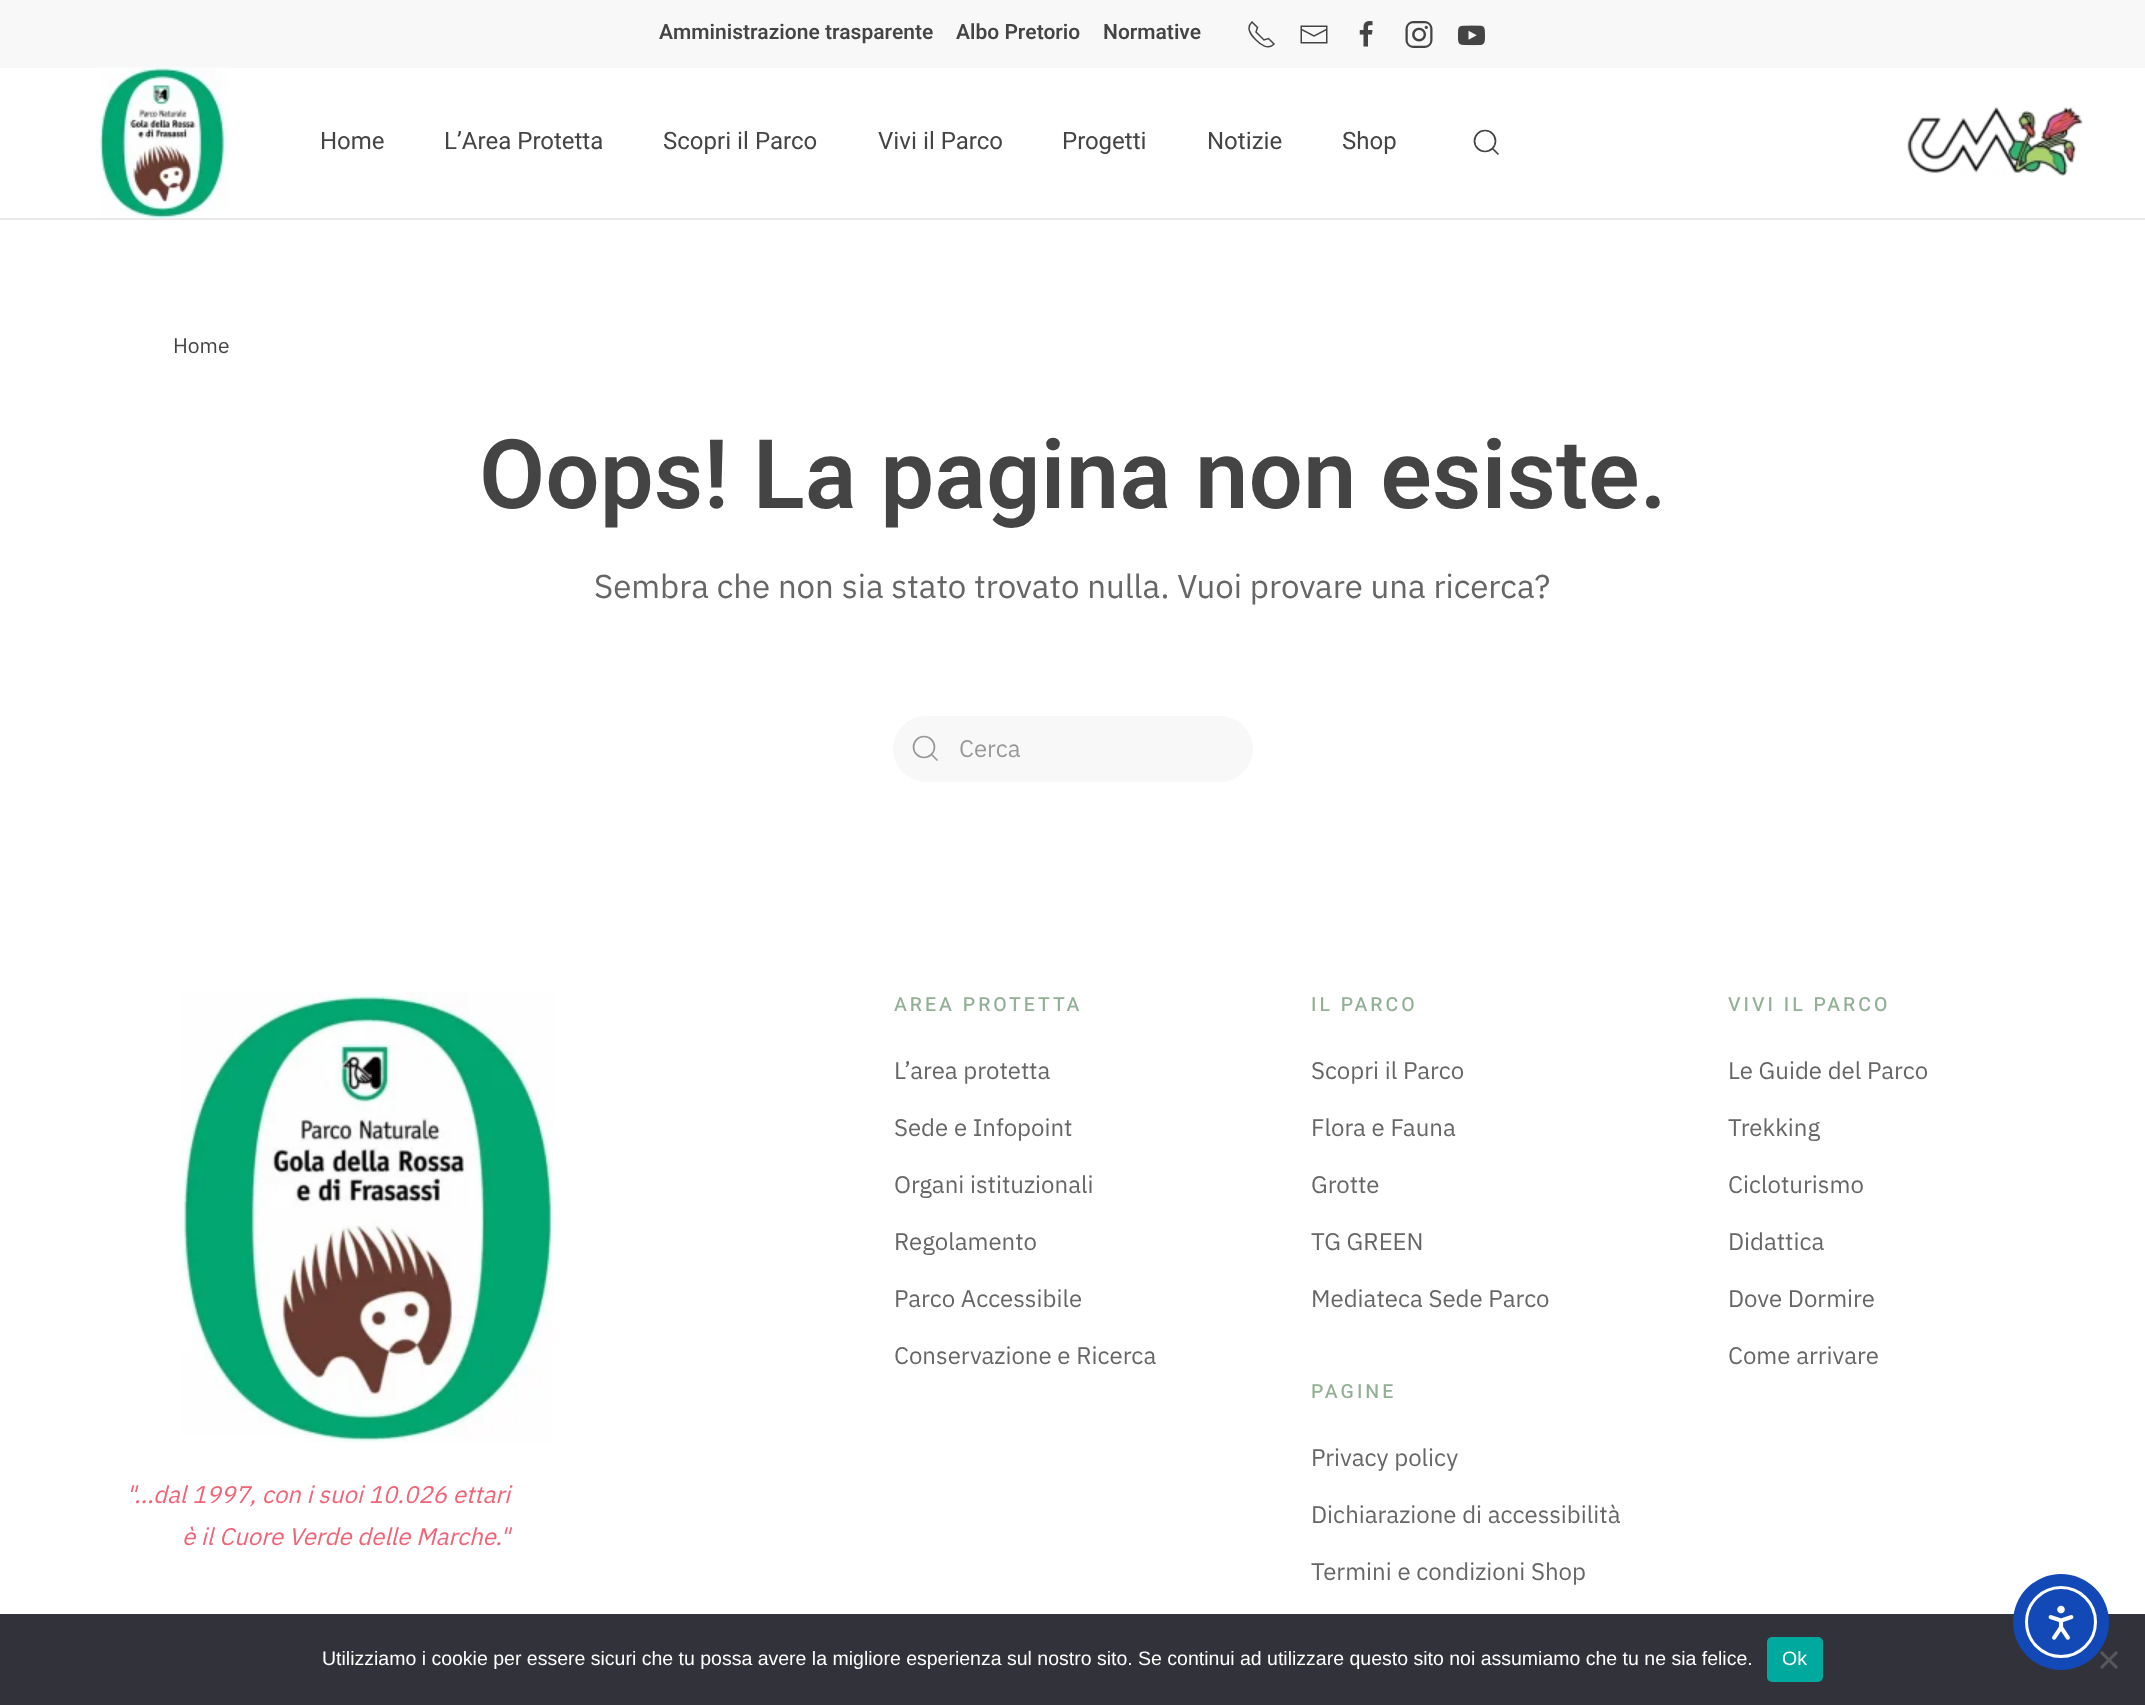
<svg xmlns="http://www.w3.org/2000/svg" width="2145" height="1705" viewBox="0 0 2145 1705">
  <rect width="100%" height="100%" fill="#fff"/>
  <path d="M0 0h2145v68H0z" fill="#f8f8f8"/>
  <path d="M1256 40C1260.5 44.5 1268 50.5 1274 44L1268.5 38.5L1264 40L1256 32L1257.5 27.5L1252 22C1245.5 28 1251 35 1256 40" fill="none" stroke="#444" stroke-width="1.5"/>
  <image x="1300" y="25" width="28" height="19" href="img/1.png"/>
  <image x="1359" y="21" width="14" height="26" href="img/2.png"/>
  <image x="1405" y="21" width="28" height="27" href="img/3.png"/>
  <image x="1458" y="25" width="27" height="21" href="img/4.png"/>
  <path d="M0 218h2145v2H0z" fill="#e8e8e8"/>
  <image x="96" y="67" width="132" height="151" href="img/5.png"/>
  <circle cx="1485" cy="141" r="10.5" fill="none" stroke="#444" stroke-width="1.7"/>
  <path d="M1492.5 148.5L1498.5 154.5Z" fill="none" stroke="#444" stroke-width="1.7"/>
  <image x="1907" y="106" width="176" height="70" href="img/6.png"/>
  <rect x="893" y="716" width="360" height="66" rx="33" fill="#f8f8f8"/>
  <circle cx="924" cy="747" r="10.5" fill="none" stroke="#999" stroke-width="1.7"/>
  <path d="M931.5 754.5L937.5 760.5Z" fill="none" stroke="#999" stroke-width="1.7"/>
  <image x="180" y="991" width="374" height="452" href="img/7.png"/>
  <path d="M0 1614h2145v91H0z" fill="#32323a"/>
  <rect x="1767" y="1637" width="56" height="45" rx="5" fill="#00a99d"/>
  <path d="M2116 1651L2118 1653L2102 1669L2100 1667Z" fill="#59595d"/>
  <path d="M2100 1653L2102 1651L2118 1667L2116 1669Z" fill="#59595d"/>
  <circle cx="2061" cy="1622" r="48" fill="#1249b7"/>
  <circle cx="2061" cy="1622" r="34.5" fill="none" stroke="#fff" stroke-width="3"/>
  <image x="2048" y="1605" width="26" height="35" href="img/8.png"/>
  <g font-family="Heebo" font-size="21" font-weight="600" fill="#444">
    <text x="659" y="39">Amministrazione trasparente</text>
    <text x="956" y="39">Albo Pretorio</text>
    <text x="1103" y="39">Normative</text>
  </g>
  <g font-family="Heebo" font-size="24" fill="#444">
    <text x="320" y="149">Home</text>
    <text x="444" y="149">L’Area Protetta</text>
    <text x="663" y="149">Scopri il Parco</text>
    <text x="878" y="149">Vivi il Parco</text>
    <text x="1062" y="149">Progetti</text>
    <text x="1207" y="149">Notizie</text>
    <text x="1342" y="149">Shop</text>
  </g>
  <text x="173" y="353" font-family="IBM Plex Sans" font-size="21" fill="#444">Home</text>
  <text x="479" y="508" font-family="Heebo" font-size="96" font-weight="600" fill="#444">Oops! La pagina non esiste.</text>
  <text x="594" y="598" font-family="IBM Plex Sans" font-size="33" fill="#666">Sembra che non sia stato trovato nulla. Vuoi provare una ricerca?</text>
  <text x="959" y="757" font-family="IBM Plex Sans" font-size="24" fill="#999">Cerca</text>
  <text x="894" y="1011" font-family="Heebo" font-size="19.5" font-weight="500" letter-spacing="3" fill="#92b095">AREA PROTETTA</text>
  <g font-family="IBM Plex Sans" font-size="24" fill="#666">
    <text x="894" y="1079">L’area protetta</text>
    <text x="894" y="1136">Sede e Infopoint</text>
    <text x="894" y="1193">Organi istituzionali</text>
    <text x="894" y="1250">Regolamento</text>
    <text x="894" y="1307">Parco Accessibile</text>
    <text x="894" y="1364">Conservazione e Ricerca</text>
  </g>
  <text x="1311" y="1011" font-family="Heebo" font-size="19.5" font-weight="500" letter-spacing="3" fill="#92b095">IL PARCO</text>
  <g font-family="IBM Plex Sans" font-size="24" fill="#666">
    <text x="1311" y="1079">Scopri il Parco</text>
    <text x="1311" y="1136">Flora e Fauna</text>
    <text x="1311" y="1193">Grotte</text>
    <text x="1311" y="1250">TG GREEN</text>
    <text x="1311" y="1307">Mediateca Sede Parco</text>
  </g>
  <text x="1311" y="1398" font-family="Heebo" font-size="19.5" font-weight="500" letter-spacing="3" fill="#92b095">PAGINE</text>
  <g font-family="IBM Plex Sans" font-size="24" fill="#666">
    <text x="1311" y="1466">Privacy policy</text>
    <text x="1311" y="1523">Dichiarazione di accessibilità</text>
    <text x="1311" y="1580">Termini e condizioni Shop</text>
  </g>
  <text x="1728" y="1011" font-family="Heebo" font-size="19.5" font-weight="500" letter-spacing="3" fill="#92b095">VIVI IL PARCO</text>
  <g font-family="IBM Plex Sans" font-size="24" fill="#666">
    <text x="1728" y="1079">Le Guide del Parco</text>
    <text x="1728" y="1136">Trekking</text>
    <text x="1728" y="1193">Cicloturismo</text>
    <text x="1728" y="1250">Didattica</text>
    <text x="1728" y="1307">Dove Dormire</text>
    <text x="1728" y="1364">Come arrivare</text>
  </g>
  <g font-family="IBM Plex Sans" font-size="24" font-style="italic" fill="#f16376">
    <text x="126" y="1503">"...dal 1997, con i suoi 10.026 ettari</text>
    <text x="182" y="1545">è il Cuore Verde delle Marche."</text>
  </g>
  <g font-family="Liberation Sans" font-size="19.5" fill="#fff">
    <text x="322" y="1665">Utilizziamo i cookie per essere sicuri che tu possa avere la migliore esperienza sul nostro sito. Se continui ad utilizzare questo sito noi assumiamo che tu ne sia felice.</text>
    <text x="1782" y="1665">Ok</text>
  </g>
</svg>
